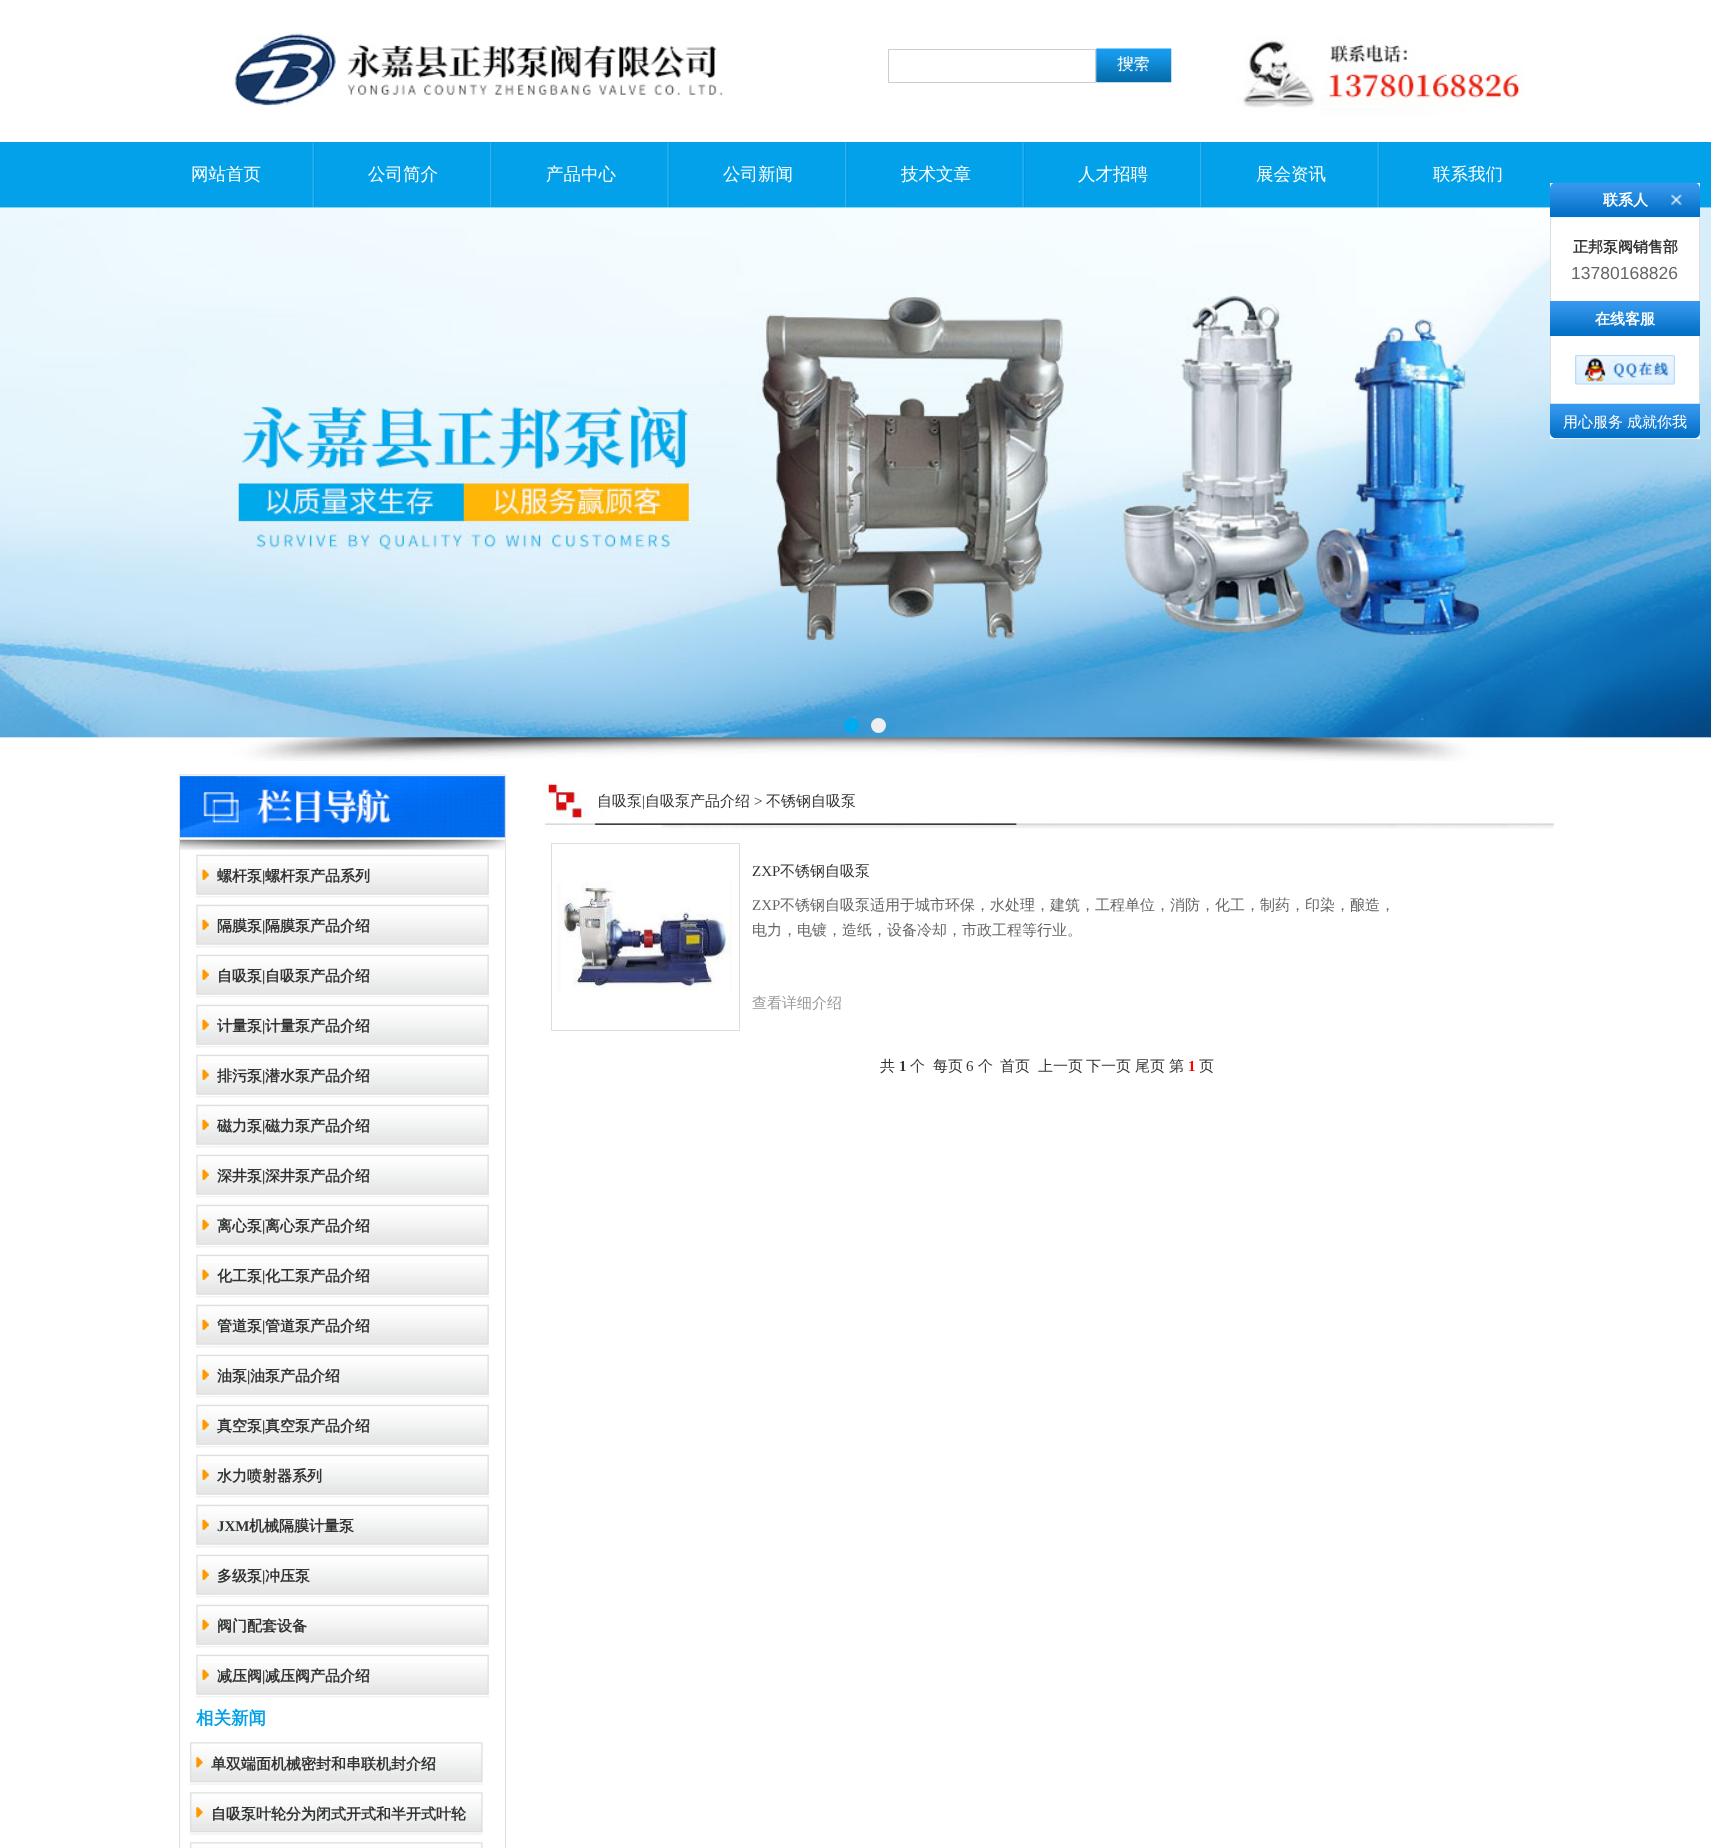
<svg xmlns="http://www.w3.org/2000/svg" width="1711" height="1848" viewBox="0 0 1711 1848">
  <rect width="100%" height="100%" fill="#fff"/>
  <image x="234" y="33" width="1290" height="83" href="img/1.png"/>
  <path d="M888.5 49.5h207v33H888.5z" fill="none" stroke="#ccc"/>
  <image x="1096" y="48" width="76" height="35" href="img/2.png"/>
  <path d="M0 142h1711v66H0z" fill="#03a1ea"/>
  <image x="312" y="142" width="3" height="66" href="img/3.png"/>
  <image x="490" y="142" width="3" height="66" href="img/4.png"/>
  <image x="667" y="142" width="3" height="66" href="img/3.png"/>
  <image x="845" y="142" width="3" height="66" href="img/4.png"/>
  <image x="1022" y="142" width="3" height="66" href="img/3.png"/>
  <image x="1200" y="142" width="3" height="66" href="img/4.png"/>
  <image x="1377" y="142" width="3" height="66" href="img/3.png"/>
  <image x="0" y="207" width="1711" height="554" href="img/5.png"/>
  <circle cx="851.5" cy="725.5" r="7.5" fill="#00aaef"/>
  <circle cx="878.5" cy="725.5" r="7.5" fill="#eee"/>
  <path d="M1550 183h150v256H1550z" fill="#fff"/>
  <image x="1550" y="182" width="150" height="36" href="img/6.png"/>
  <image x="1671" y="194" width="11" height="11" href="img/7.png"/>
  <path d="M1699 218h1v83H1699z" fill="#dfdfdf"/>
  <path d="M1550 218h1v83H1550z" fill="#dfdfdf"/>
  <image x="1550" y="301" width="150" height="35" href="img/8.png"/>
  <path d="M1699 336h1v68H1699z" fill="#dfdfdf"/>
  <path d="M1550 336h1v68H1550z" fill="#dfdfdf"/>
  <image x="1575" y="354" width="100" height="31" href="img/9.png"/>
  <image x="1550" y="403" width="150" height="36" href="img/10.png"/>
  <path d="M179.5 774.5h326v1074H179.5z" fill="none" stroke="#e0e1e3"/>
  <image x="180" y="774" width="325" height="76" href="img/11.png"/>
  <image x="195" y="849" width="295" height="49" href="img/12.png"/>
  <image x="195" y="904" width="295" height="44" href="img/13.png"/>
  <image x="195" y="954" width="295" height="44" href="img/13.png"/>
  <image x="195" y="1004" width="295" height="44" href="img/13.png"/>
  <image x="195" y="1054" width="295" height="44" href="img/13.png"/>
  <image x="195" y="1104" width="295" height="44" href="img/13.png"/>
  <image x="195" y="1154" width="295" height="44" href="img/14.png"/>
  <image x="195" y="1204" width="295" height="44" href="img/13.png"/>
  <image x="195" y="1254" width="295" height="44" href="img/13.png"/>
  <image x="195" y="1304" width="295" height="44" href="img/13.png"/>
  <image x="195" y="1354" width="295" height="44" href="img/13.png"/>
  <image x="195" y="1404" width="295" height="44" href="img/13.png"/>
  <image x="195" y="1454" width="295" height="44" href="img/13.png"/>
  <image x="195" y="1504" width="295" height="44" href="img/13.png"/>
  <image x="195" y="1554" width="295" height="44" href="img/15.png"/>
  <image x="195" y="1604" width="295" height="44" href="img/13.png"/>
  <image x="195" y="1654" width="295" height="44" href="img/13.png"/>
  <image x="189" y="1742" width="294" height="43" href="img/16.png"/>
  <image x="189" y="1792" width="294" height="43" href="img/16.png"/>
  <image x="190" y="1842" width="293" height="6" href="img/17.png"/>
  <image x="542" y="781" width="1012" height="48" href="img/18.png"/>
  <path d="M551.5 843.5h188v187H551.5z" fill="none" stroke="#ddd"/>
  <image x="557" y="882" width="175" height="109" href="img/19.png"/>
  <g font-family="WenQuanYi Zen Hei" font-size="17.5" font-weight="500" fill="#fff">
    <text x="191" y="180">网站首页</text>
    <text x="368" y="180">公司简介</text>
    <text x="546" y="180">产品中心</text>
    <text x="723" y="180">公司新闻</text>
    <text x="901" y="180">技术文章</text>
    <text x="1078" y="180">人才招聘</text>
    <text x="1256" y="180">展会资讯</text>
    <text x="1433" y="180">联系我们</text>
  </g>
  <text x="1603" y="205" font-family="WenQuanYi Zen Hei" font-size="15" font-weight="bold" fill="#fff">联系人</text>
  <text x="1573" y="252" font-family="WenQuanYi Zen Hei" font-size="15" font-weight="bold" fill="#333">正邦泵阀销售部</text>
  <text x="1571" y="279" font-family="Liberation Sans" font-size="17.5" fill="#666">13780168826</text>
  <text x="1595" y="324" font-family="WenQuanYi Zen Hei" font-size="15" font-weight="bold" fill="#fff">在线客服</text>
  <g font-family="WenQuanYi Zen Hei" font-size="15" font-weight="500" fill="#fff">
    <text x="1563" y="427">用心服务</text>
    <text x="1627" y="427">成就你我</text>
  </g>
  <text x="217" y="881" font-family="WenQuanYi Zen Hei" font-size="15" font-weight="bold" fill="#333">螺杆泵</text>
  <text x="262" y="881" font-family="Liberation Serif" font-size="15" font-weight="bold" fill="#333">|</text>
  <g font-family="WenQuanYi Zen Hei" font-size="15" font-weight="bold" fill="#333">
    <text x="265" y="881">螺杆泵产品系列</text>
    <text x="217" y="931">隔膜泵</text>
  </g>
  <text x="262" y="931" font-family="Liberation Serif" font-size="15" font-weight="bold" fill="#333">|</text>
  <g font-family="WenQuanYi Zen Hei" font-size="15" font-weight="bold" fill="#333">
    <text x="265" y="931">隔膜泵产品介绍</text>
    <text x="217" y="981">自吸泵</text>
  </g>
  <text x="262" y="981" font-family="Liberation Serif" font-size="15" font-weight="bold" fill="#333">|</text>
  <g font-family="WenQuanYi Zen Hei" font-size="15" font-weight="bold" fill="#333">
    <text x="265" y="981">自吸泵产品介绍</text>
    <text x="217" y="1031">计量泵</text>
  </g>
  <text x="262" y="1031" font-family="Liberation Serif" font-size="15" font-weight="bold" fill="#333">|</text>
  <g font-family="WenQuanYi Zen Hei" font-size="15" font-weight="bold" fill="#333">
    <text x="265" y="1031">计量泵产品介绍</text>
    <text x="217" y="1081">排污泵</text>
  </g>
  <text x="262" y="1081" font-family="Liberation Serif" font-size="15" font-weight="bold" fill="#333">|</text>
  <g font-family="WenQuanYi Zen Hei" font-size="15" font-weight="bold" fill="#333">
    <text x="265" y="1081">潜水泵产品介绍</text>
    <text x="217" y="1131">磁力泵</text>
  </g>
  <text x="262" y="1131" font-family="Liberation Serif" font-size="15" font-weight="bold" fill="#333">|</text>
  <g font-family="WenQuanYi Zen Hei" font-size="15" font-weight="bold" fill="#333">
    <text x="265" y="1131">磁力泵产品介绍</text>
    <text x="217" y="1181">深井泵</text>
  </g>
  <text x="262" y="1181" font-family="Liberation Serif" font-size="15" font-weight="bold" fill="#333">|</text>
  <g font-family="WenQuanYi Zen Hei" font-size="15" font-weight="bold" fill="#333">
    <text x="265" y="1181">深井泵产品介绍</text>
    <text x="217" y="1231">离心泵</text>
  </g>
  <text x="262" y="1231" font-family="Liberation Serif" font-size="15" font-weight="bold" fill="#333">|</text>
  <g font-family="WenQuanYi Zen Hei" font-size="15" font-weight="bold" fill="#333">
    <text x="265" y="1231">离心泵产品介绍</text>
    <text x="217" y="1281">化工泵</text>
  </g>
  <text x="262" y="1281" font-family="Liberation Serif" font-size="15" font-weight="bold" fill="#333">|</text>
  <g font-family="WenQuanYi Zen Hei" font-size="15" font-weight="bold" fill="#333">
    <text x="265" y="1281">化工泵产品介绍</text>
    <text x="217" y="1331">管道泵</text>
  </g>
  <text x="262" y="1331" font-family="Liberation Serif" font-size="15" font-weight="bold" fill="#333">|</text>
  <g font-family="WenQuanYi Zen Hei" font-size="15" font-weight="bold" fill="#333">
    <text x="265" y="1331">管道泵产品介绍</text>
    <text x="217" y="1381">油泵</text>
  </g>
  <text x="247" y="1381" font-family="Liberation Serif" font-size="15" font-weight="bold" fill="#333">|</text>
  <g font-family="WenQuanYi Zen Hei" font-size="15" font-weight="bold" fill="#333">
    <text x="250" y="1381">油泵产品介绍</text>
    <text x="217" y="1431">真空泵</text>
  </g>
  <text x="262" y="1431" font-family="Liberation Serif" font-size="15" font-weight="bold" fill="#333">|</text>
  <g font-family="WenQuanYi Zen Hei" font-size="15" font-weight="bold" fill="#333">
    <text x="265" y="1431">真空泵产品介绍</text>
    <text x="217" y="1481">水力喷射器系列</text>
  </g>
  <text x="217" y="1531" font-family="Liberation Serif" font-size="15" font-weight="bold" fill="#333">JXM</text>
  <g font-family="WenQuanYi Zen Hei" font-size="15" font-weight="bold" fill="#333">
    <text x="249" y="1531">机械隔膜计量泵</text>
    <text x="217" y="1581">多级泵</text>
  </g>
  <text x="262" y="1581" font-family="Liberation Serif" font-size="15" font-weight="bold" fill="#333">|</text>
  <g font-family="WenQuanYi Zen Hei" font-size="15" font-weight="bold" fill="#333">
    <text x="265" y="1581">冲压泵</text>
    <text x="217" y="1631">阀门配套设备</text>
    <text x="217" y="1681">减压阀</text>
  </g>
  <text x="262" y="1681" font-family="Liberation Serif" font-size="15" font-weight="bold" fill="#333">|</text>
  <text x="265" y="1681" font-family="WenQuanYi Zen Hei" font-size="15" font-weight="bold" fill="#333">减压阀产品介绍</text>
  <text x="196" y="1724" font-family="WenQuanYi Zen Hei" font-size="17.5" font-weight="bold" fill="#03a1ea">相关新闻</text>
  <g font-family="WenQuanYi Zen Hei" font-size="15" font-weight="bold" fill="#333">
    <text x="211" y="1769">单双端面机械密封和串联机封介绍</text>
    <text x="211" y="1819">自吸泵叶轮分为闭式开式和半开式叶轮</text>
  </g>
  <text x="597" y="806" font-family="WenQuanYi Zen Hei" font-size="15" font-weight="500" fill="#333">自吸泵</text>
  <text x="642" y="806" font-family="Liberation Serif" font-size="15" fill="#333">|</text>
  <text x="645" y="806" font-family="WenQuanYi Zen Hei" font-size="15" font-weight="500" fill="#333">自吸泵产品介绍</text>
  <text x="754" y="806" font-family="Liberation Serif" font-size="15" fill="#333">&gt;</text>
  <text x="766" y="806" font-family="WenQuanYi Zen Hei" font-size="15" font-weight="500" fill="#333">不锈钢自吸泵</text>
  <text x="752" y="876" font-family="Liberation Serif" font-size="15" fill="#333">ZXP</text>
  <text x="780" y="876" font-family="WenQuanYi Zen Hei" font-size="15" font-weight="500" fill="#333">不锈钢自吸泵</text>
  <text x="752" y="910" font-family="Liberation Serif" font-size="15" fill="#666">ZXP</text>
  <g font-family="WenQuanYi Zen Hei" font-size="15" font-weight="500" fill="#666">
    <text x="780" y="910">不锈钢自吸泵适用于城市环保，水处理，建筑，工程单位，消防，化工，制药，印染，酿造，</text>
    <text x="752" y="935">电力，电镀，造纸，设备冷却，市政工程等行业。</text>
  </g>
  <text x="752" y="1008" font-family="WenQuanYi Zen Hei" font-size="15" font-weight="500" fill="#999">查看详细介绍</text>
  <text x="880" y="1071" font-family="WenQuanYi Zen Hei" font-size="15" font-weight="500" fill="#333">共</text>
  <text x="899" y="1071" font-family="Liberation Serif" font-size="15" font-weight="bold" fill="#333">1</text>
  <g font-family="WenQuanYi Zen Hei" font-size="15" font-weight="500" fill="#333">
    <text x="910" y="1071">个</text>
    <text x="933" y="1071">每页</text>
  </g>
  <text x="966" y="1071" font-family="Liberation Serif" font-size="15" fill="#333">6</text>
  <g font-family="WenQuanYi Zen Hei" font-size="15" font-weight="500" fill="#333">
    <text x="978" y="1071">个</text>
    <text x="1000" y="1071">首页</text>
    <text x="1038" y="1071">上一页</text>
    <text x="1086" y="1071">下一页</text>
    <text x="1135" y="1071">尾页</text>
    <text x="1169" y="1071">第</text>
  </g>
  <text x="1188" y="1071" font-family="Liberation Serif" font-size="15" font-weight="bold" fill="#f00">1</text>
  <text x="1199" y="1071" font-family="WenQuanYi Zen Hei" font-size="15" font-weight="500" fill="#333">页</text>
</svg>
